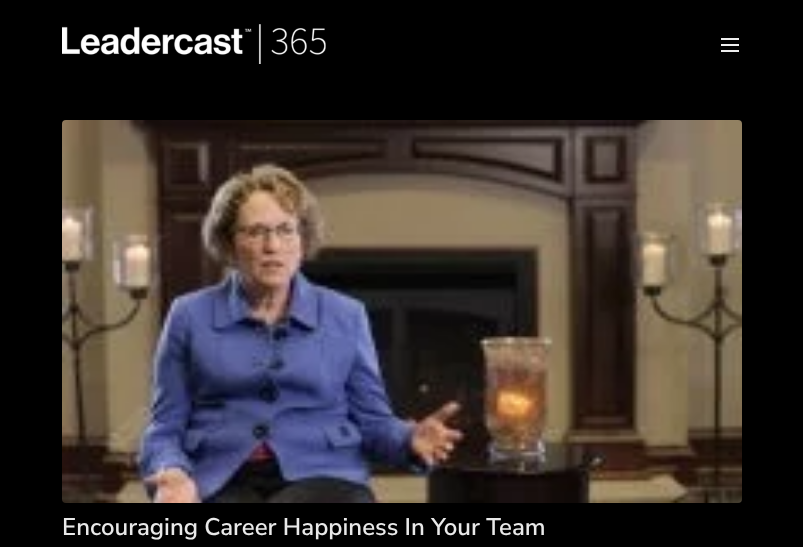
<svg xmlns="http://www.w3.org/2000/svg" width="803" height="547" viewBox="0 0 803 547">
  <rect width="100%" height="100%" fill="#000"/>
  <image x="62" y="24" width="264" height="40" href="img/1.png"/>
  <image x="721" y="38" width="18" height="14" href="img/2.png"/>
  <image x="62" y="120" width="680" height="383" href="img/3.png"/>
  <text x="62" y="535" font-family="Nunito Sans" font-size="24" font-weight="600" fill="#e9e9e9">Encouraging Career Happiness In Your Team</text>
</svg>
